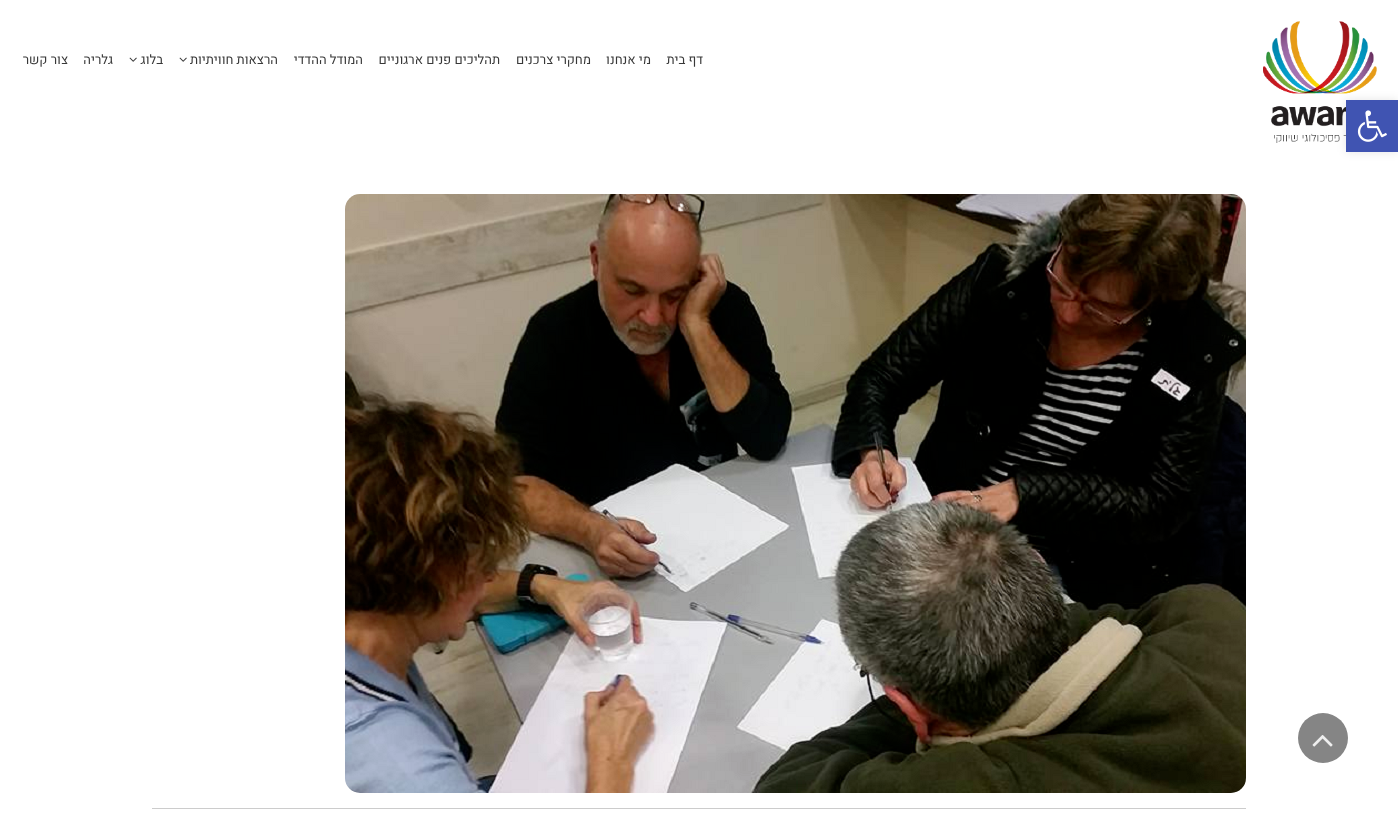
<svg xmlns="http://www.w3.org/2000/svg" width="1398" height="813" viewBox="0 0 1398 813">
  <rect width="100%" height="100%" fill="#fff"/>
  <image x="1263" y="21" width="114" height="122" href="img/1.png"/>
  <image x="179" y="57" width="8" height="5" href="img/2.png"/>
  <image x="129" y="57" width="8" height="5" href="img/2.png"/>
  <image x="345" y="194" width="901" height="599" href="img/3.png"/>
  <path d="M152 808h1094v1H152z" fill="#ccc"/>
  <path d="M1346 100h52v52H1346z" fill="#0000001a" filter="blur(5px)"/>
  <path d="M1346 100h52v52H1346z" fill="#4054b2"/>
  <image x="1357" y="110" width="30" height="32" href="img/4.png"/>
  <circle cx="1323" cy="738" r="25" fill="#858585"/>
  <image x="1312" y="735" width="21" height="12" href="img/5.png"/>
  <g font-family="Heebo" font-size="13" direction="rtl" fill="#383838">
    <text x="703" y="64">דף בית</text>
    <text x="651" y="64">מי אנחנו</text>
    <text x="591" y="64">מחקרי צרכנים</text>
    <text x="500" y="64">תהליכים פנים ארגוניים</text>
    <text x="363" y="64">המודל ההדדי</text>
    <text x="278" y="64">הרצאות חוויתיות</text>
    <text x="163" y="64">בלוג</text>
    <text x="113" y="64">גלריה</text>
    <text x="68" y="64">צור קשר</text>
  </g>
</svg>
